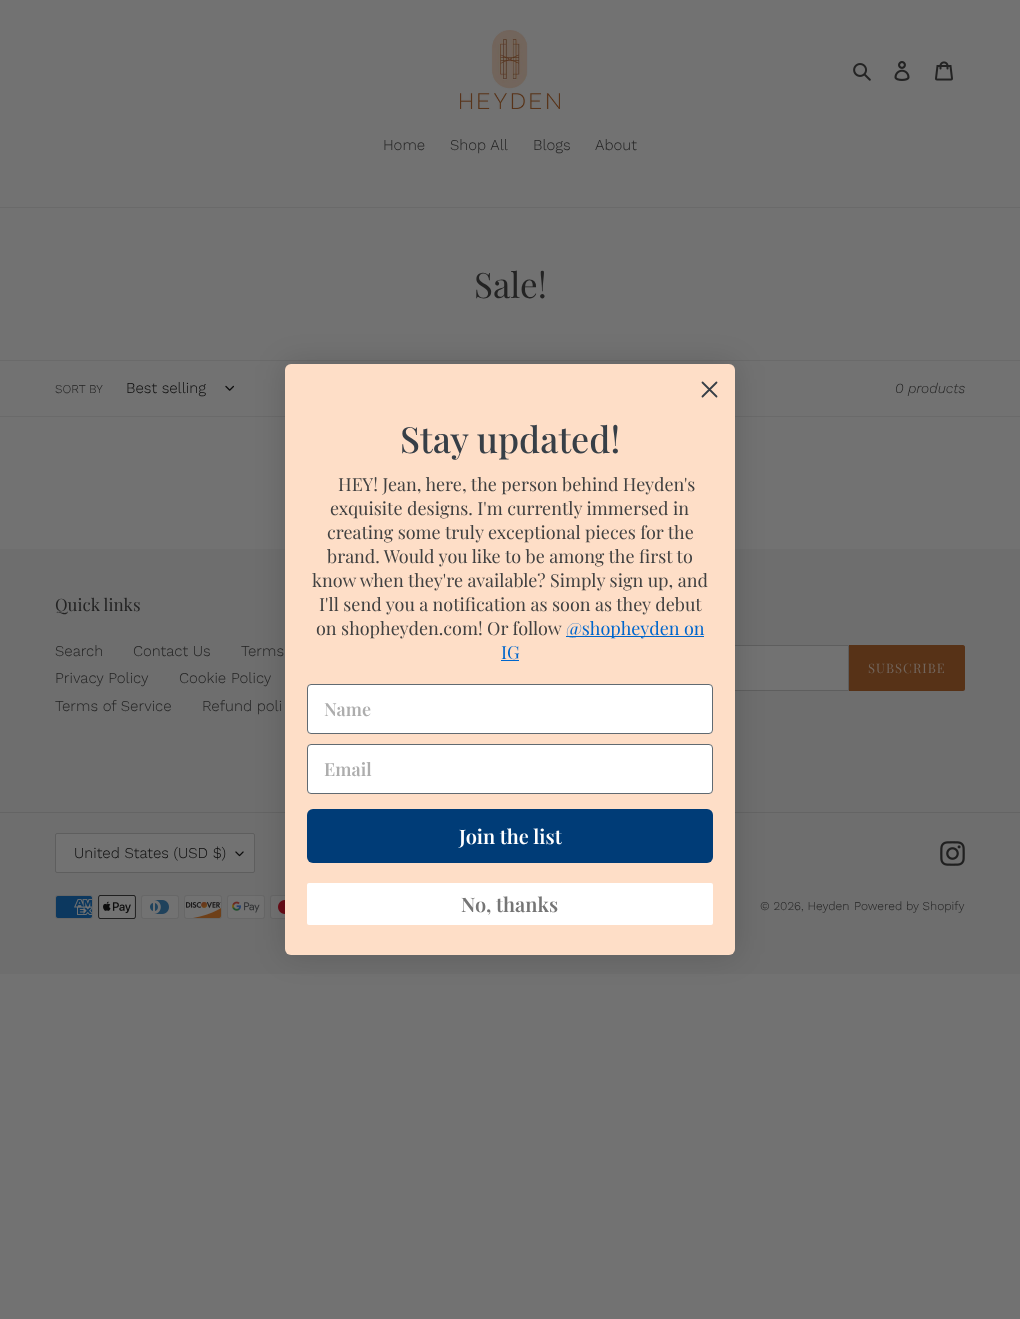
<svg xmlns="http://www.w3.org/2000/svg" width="1020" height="1319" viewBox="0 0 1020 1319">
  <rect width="100%" height="100%" fill="#727272"/>
  <image x="460" y="30" width="100" height="79" href="img/1.png"/>
  <image x="853" y="63" width="18" height="18" href="img/2.png"/>
  <image x="894" y="61" width="16" height="20" href="img/3.png"/>
  <image x="935" y="61" width="18" height="20" href="img/4.png"/>
  <path d="M0 207h1020v1H0z" fill="#6a6a6a"/>
  <path d="M0 360h1020v1H0z" fill="#6a6a6a"/>
  <path d="M0 416h1020v1H0z" fill="#6a6a6a"/>
  <image x="225" y="385" width="9" height="6" href="img/5.png"/>
  <path d="M0 549h1020v425H0z" fill="#6e6e6e"/>
  <path d="M735 646h113v44H735z" fill="#727272"/>
  <path d="M525.5 645.5h323v45H525.5z" fill="none" stroke="#5e5e5e"/>
  <path d="M849 645H963C964 645 965 646 965 647V689C965 690 964 691 963 691H849Z" fill="#573217"/>
  <path d="M0 812h1020v1H0z" fill="#646464"/>
  <rect x="55" y="833" width="200" height="40" rx="2" fill="#727272"/>
  <image x="235" y="851" width="9" height="6" href="img/6.png"/>
  <rect x="55.5" y="833.5" width="199" height="39" rx="1.5" fill="none" stroke="#5e5e5e"/>
  <image x="940" y="841" width="25" height="25" href="img/7.png"/>
  <image x="55" y="895" width="38" height="24" href="img/8.png"/>
  <image x="98" y="895" width="38" height="24" href="img/9.png"/>
  <image x="141" y="895" width="38" height="24" href="img/10.png"/>
  <image x="184" y="895" width="38" height="24" href="img/11.png"/>
  <image x="227" y="895" width="38" height="24" href="img/12.png"/>
  <image x="270" y="895" width="15" height="24" href="img/13.png"/>
  <rect x="285" y="364" width="450" height="591" rx="6" fill="#00000026" filter="blur(15px)"/>
  <rect x="285" y="364" width="450" height="591" rx="6" fill="#fedec7"/>
  <path d="M702.5 382.5L716.5 396.5M702.5 396.5L716.5 382.5Z" fill="none" stroke="#373f47" stroke-width="1.8" stroke-linecap="round" stroke-linejoin="round"/>
  <path d="M566 636h138v1H566z" fill="#06c"/>
  <path d="M501 660h18v1H501z" fill="#06c"/>
  <rect x="307.5" y="684.5" width="405" height="49" rx="3.5" fill="#fff" stroke="#606a72"/>
  <rect x="307.5" y="744.5" width="405" height="49" rx="3.5" fill="#fff" stroke="#606a72"/>
  <rect x="307" y="809" width="406" height="54" rx="6" fill="#003c77"/>
  <rect x="307" y="883" width="406" height="42" rx="2" fill="#fff"/>
  <g font-family="Work Sans" font-size="15" font-weight="300" fill="#232323">
    <text x="383" y="150">Home</text>
    <text x="450" y="150">Shop All</text>
    <text x="533" y="150">Blogs</text>
    <text x="595" y="150">About</text>
  </g>
  <text x="474" y="298" font-family="Playfair Display" font-size="35" fill="#232323">Sale!</text>
  <text x="55" y="393" font-family="Work Sans" font-size="12" font-weight="300" fill="#232323">SORT BY</text>
  <text x="126" y="393" font-family="Work Sans" font-size="15" font-weight="300" fill="#0c0c0c">Best selling</text>
  <text x="895" y="393" font-family="Work Sans" font-size="14" font-weight="300" font-style="italic" fill="#232323">0 products</text>
  <text x="55" y="611" font-family="Playfair Display" font-size="17" fill="#232323">Quick links</text>
  <g font-family="Work Sans" font-size="15" font-weight="300" fill="#232323">
    <text x="55" y="656">Search</text>
    <text x="133" y="656">Contact Us</text>
    <text x="241" y="656">Terms</text>
    <text x="55" y="683">Privacy Policy</text>
    <text x="179" y="683">Cookie Policy</text>
    <text x="55" y="711">Terms of Service</text>
    <text x="202" y="711">Refund poli</text>
  </g>
  <text x="868" y="673" font-family="Playfair Display" font-size="13" letter-spacing="1" fill="#72655c">SUBSCRIBE</text>
  <text x="74" y="858" font-family="Work Sans" font-size="15" font-weight="300" fill="#0c0c0c">United States (USD $)</text>
  <g font-family="Work Sans" font-size="12" font-weight="300" fill="#232323">
    <text x="760" y="910">© 2026, Heyden</text>
    <text x="854" y="910">Powered by Shopify</text>
  </g>
  <text x="400" y="453" font-family="Playfair Display" font-size="36" font-weight="500" fill="#373f47">Stay updated!</text>
  <g font-family="Playfair Display" font-size="18" fill="#414141">
    <text x="338" y="491">HEY! Jean, here, the person behind Heyden's</text>
    <text x="330" y="515">exquisite designs. I'm currently immersed in</text>
    <text x="327" y="539">creating some truly exceptional pieces for the</text>
    <text x="327" y="563">brand. Would you like to be among the first to</text>
    <text x="312" y="587">know when they're available? Simply sign up, and</text>
    <text x="319" y="611">I'll send you a notification as soon as they debut</text>
    <text x="316" y="635">on shopheyden.com! Or follow</text>
  </g>
  <g font-family="Playfair Display" font-size="18" fill="#06c">
    <text x="566" y="635">@shopheyden on</text>
    <text x="501" y="659">IG</text>
  </g>
  <g font-family="Playfair Display" font-size="18" font-weight="600" fill="#adadad">
    <text x="324" y="716">Name</text>
    <text x="324" y="776">Email</text>
  </g>
  <text x="459" y="844" font-family="Playfair Display" font-size="20" font-weight="600" fill="#fff">Join the list</text>
  <text x="461" y="912" font-family="Playfair Display" font-size="20" font-weight="600" fill="#757575">No, thanks</text>
</svg>
